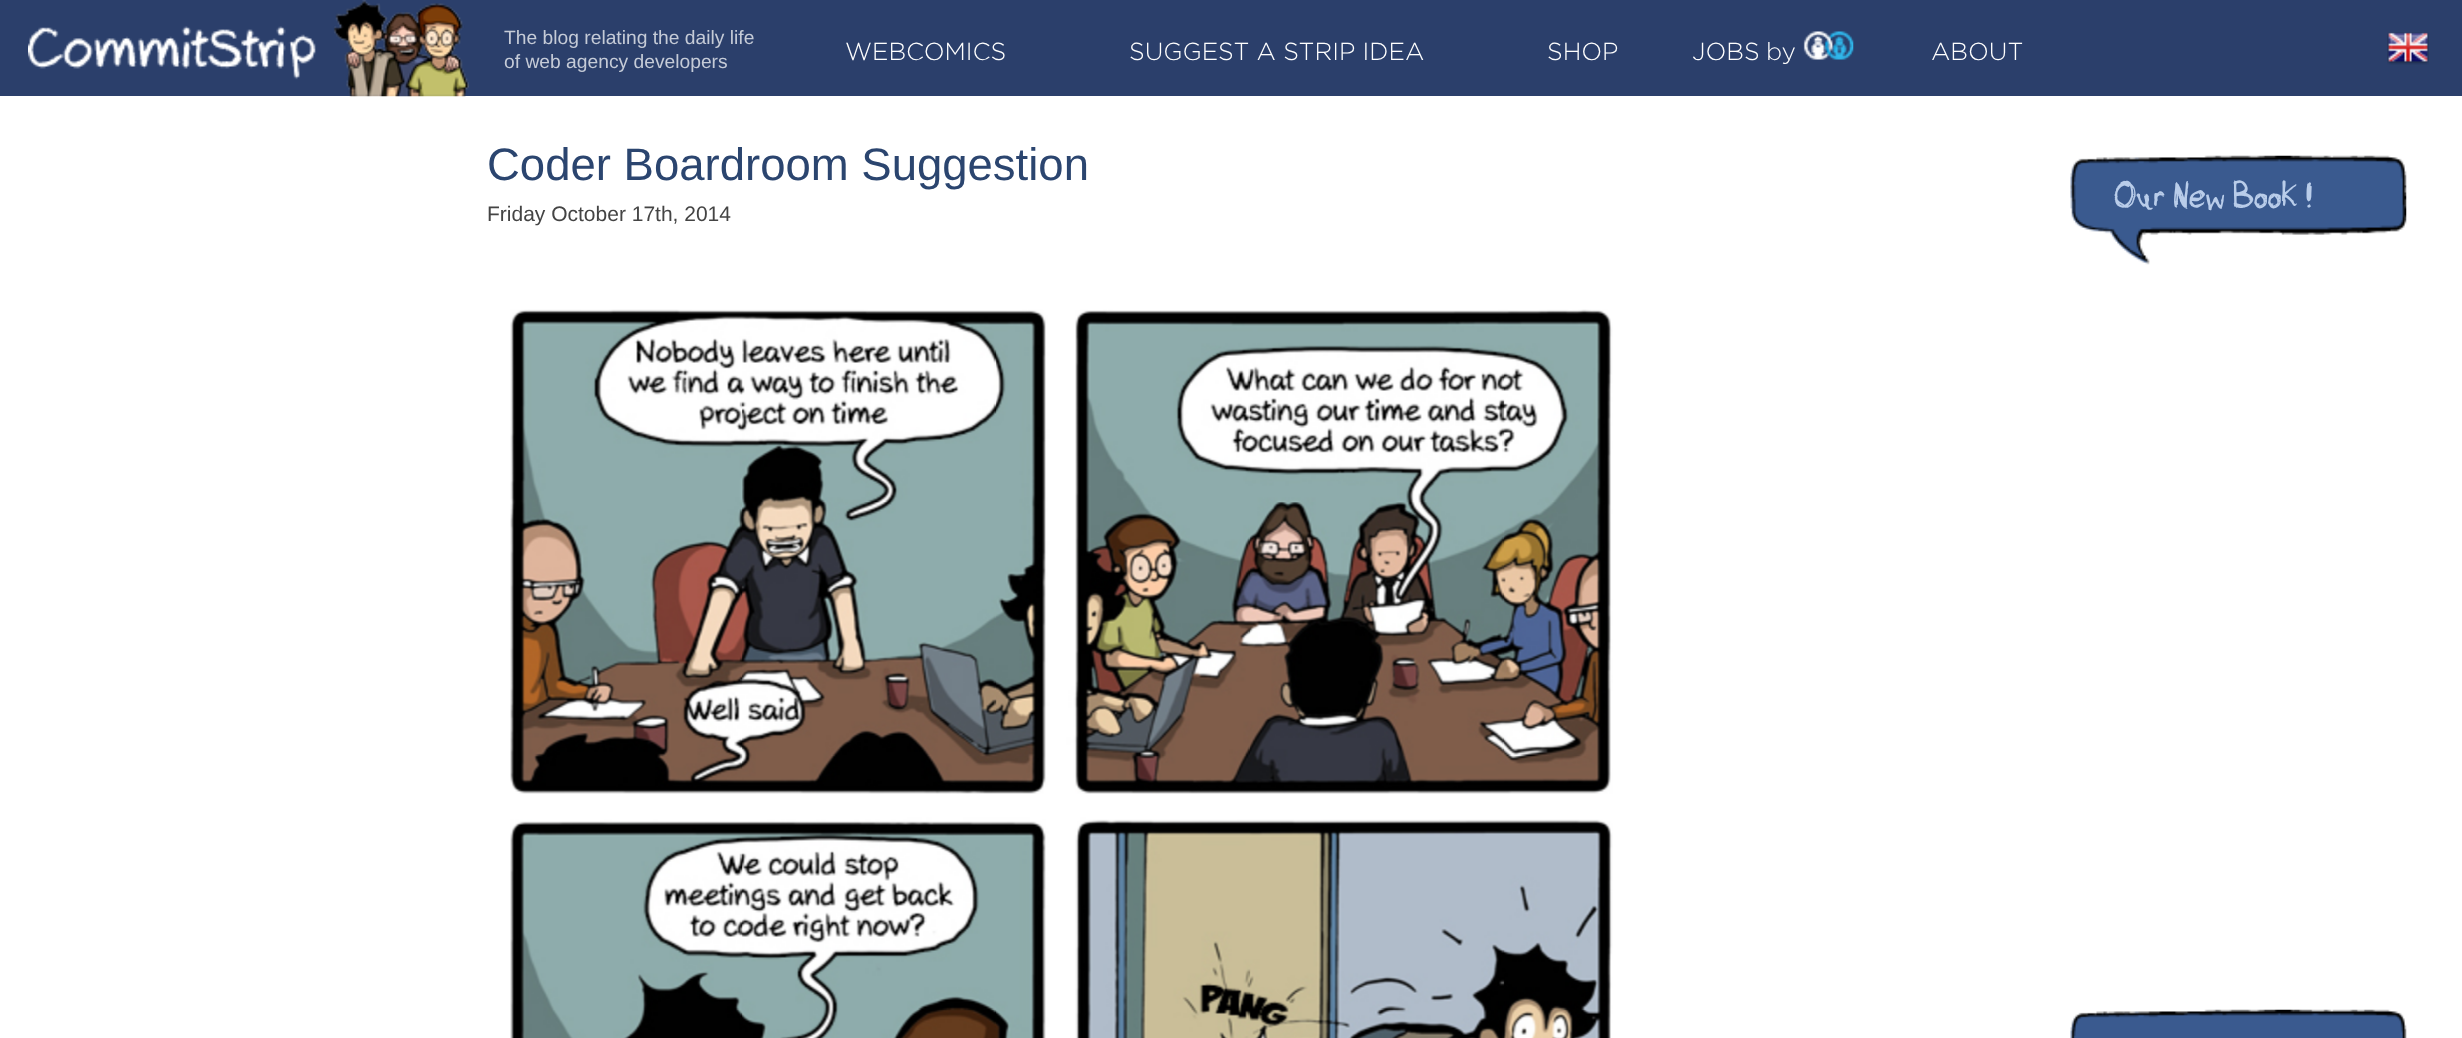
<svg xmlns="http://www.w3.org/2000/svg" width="2462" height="1038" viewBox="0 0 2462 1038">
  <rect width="100%" height="100%" fill="#fff"/>
  <path d="M0 0h2462v96H0z" fill="#2b3f6b"/>
  <image x="28" y="0" width="441" height="97" href="img/1.png"/>
  <image x="1803" y="31" width="51" height="29" href="img/2.png"/>
  <image x="2387" y="32" width="42" height="33" href="img/3.png"/>
  <image x="510" y="309" width="1103" height="729" href="img/4.png"/>
  <image x="2070" y="155" width="337" height="110" href="img/5.png"/>
  <image x="2070" y="1009" width="337" height="29" href="img/6.png"/>
  <g font-family="Liberation Sans" font-size="19.25" fill="#c5cbd7">
    <text x="504" y="44">The blog relating the daily life</text>
    <text x="504" y="68">of web agency developers</text>
  </g>
  <g font-family="gotham" font-size="24.5" font-weight="300" fill="#fff">
    <text x="845" y="60">WEBCOMICS</text>
    <text x="1129" y="60">SUGGEST A STRIP IDEA</text>
    <text x="1547" y="60">SHOP</text>
    <text x="1692" y="60">JOBS</text>
    <text x="1766" y="60">by</text>
    <text x="1931" y="60">ABOUT</text>
  </g>
  <text x="487" y="180" font-family="Liberation Sans" font-size="45.5" fill="#2b456f">Coder Boardroom Suggestion</text>
  <text x="487" y="221" font-family="Liberation Sans" font-size="21" fill="#444">Friday October 17th, 2014</text>
  <text x="2114" y="205" font-family="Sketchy" font-size="35" font-weight="500" fill="#b9cdea">Our New Book !</text>
</svg>
